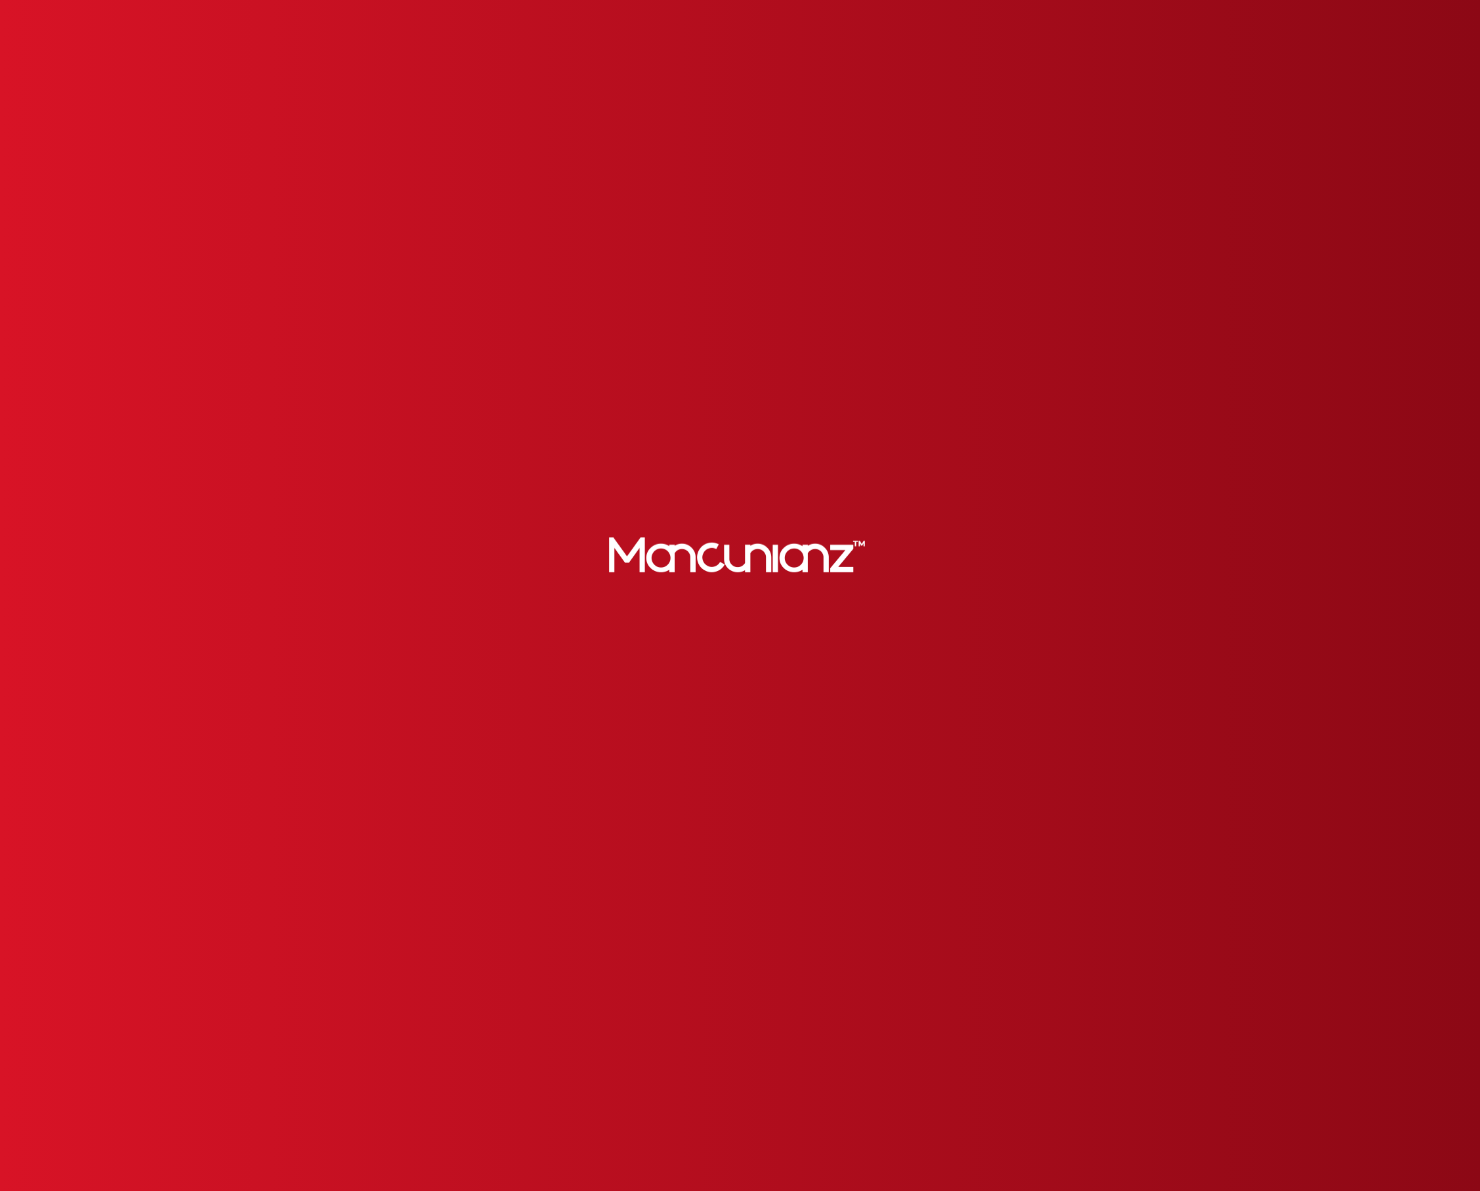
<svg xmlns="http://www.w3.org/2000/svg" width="1480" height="1191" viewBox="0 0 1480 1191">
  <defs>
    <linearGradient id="g1" gradientUnits="userSpaceOnUse" x1="0" y1="0" x2="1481" y2="0"><stop offset="0" stop-color="#d81326"/><stop offset="1" stop-color="#8c0815"/></linearGradient>
  </defs>
  <rect width="100%" height="100%" fill="#fff"/>
  <path d="M0 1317C0 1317 259 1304 740 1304C1221 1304 1480 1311 1480 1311V0H0Z" fill="url(#g1)"/>
  <image x="609" y="537" width="256" height="36" href="img/1.png"/>
</svg>
